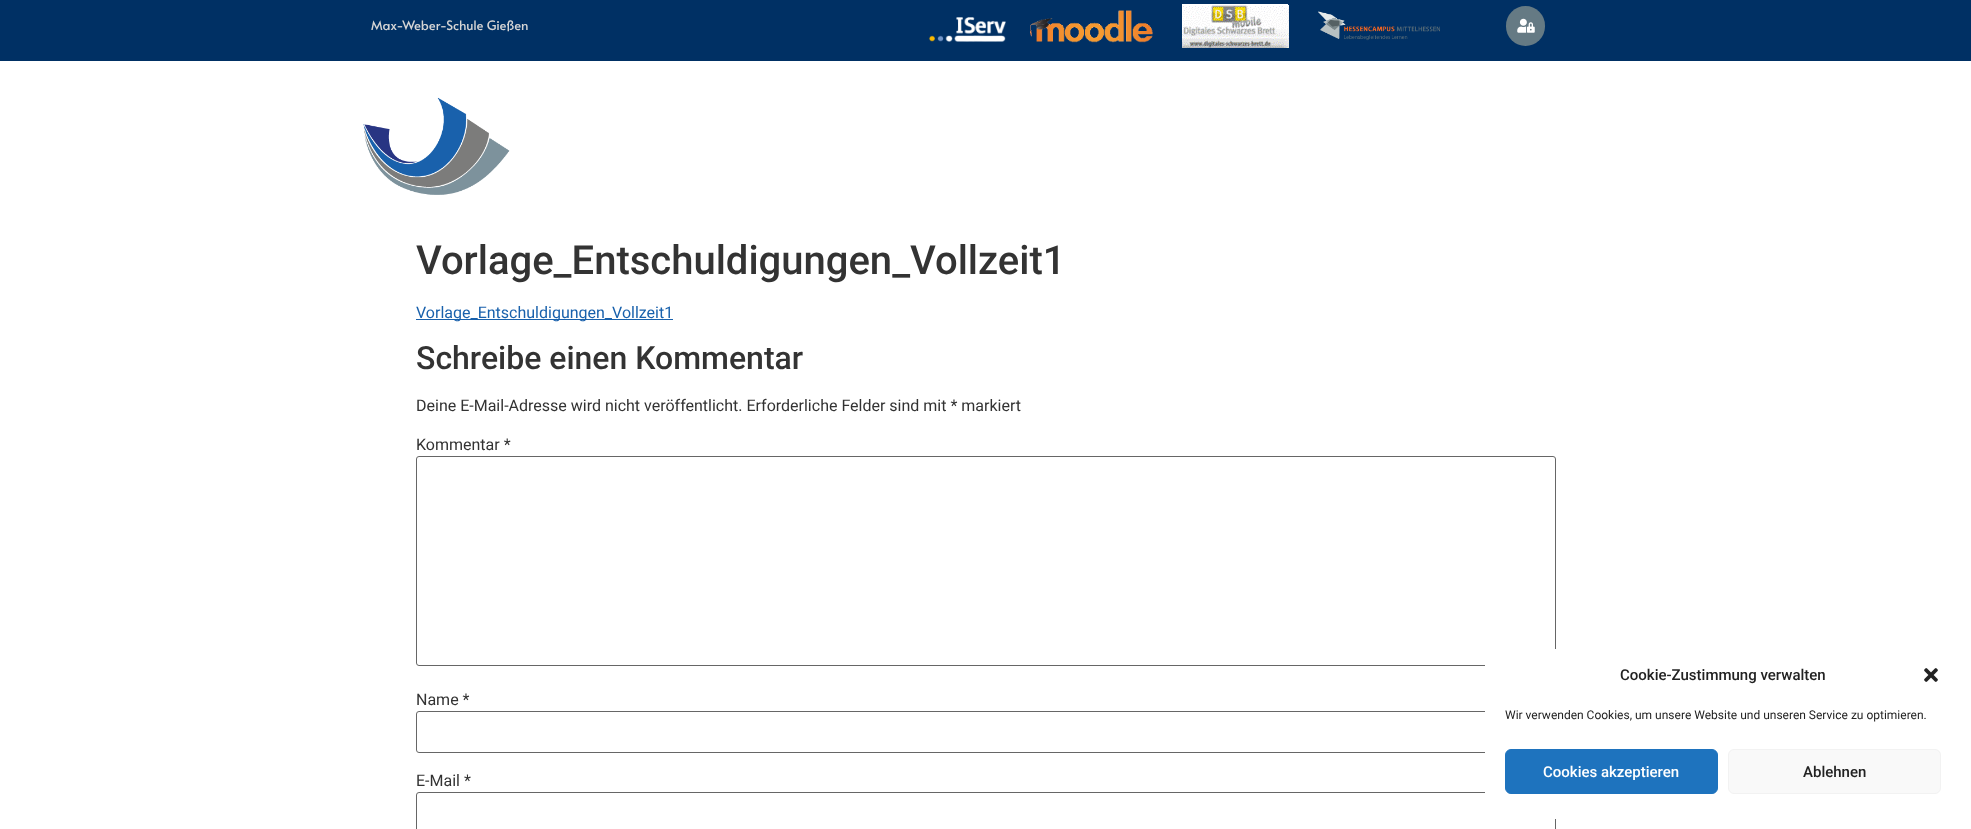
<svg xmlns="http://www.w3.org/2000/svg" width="1971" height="829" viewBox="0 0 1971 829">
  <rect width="100%" height="100%" fill="#fff"/>
  <path d="M0 0h1971v61H0z" fill="#003064"/>
  <image x="929" y="17" width="77" height="25" href="img/1.png"/>
  <image x="1030" y="10" width="123" height="33" href="img/2.png"/>
  <image x="1182" y="4" width="107" height="44" href="img/3.png"/>
  <image x="1318" y="11" width="122" height="30" href="img/4.png"/>
  <rect x="1506" y="6" width="39" height="40" rx="19.5" fill="#657a84"/>
  <image x="1517" y="18" width="18" height="15" href="img/5.png"/>
  <image x="363" y="97" width="147" height="98" href="img/6.png"/>
  <path d="M416 319h257v1H416z" fill="#1961ac"/>
  <rect x="416.5" y="456.5" width="1139" height="209" rx="2.5" fill="none" stroke="#666"/>
  <rect x="416.5" y="711.5" width="1139" height="41" rx="2.5" fill="none" stroke="#666"/>
  <rect x="416.5" y="792.5" width="1139" height="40" rx="2.5" fill="none" stroke="#666"/>
  <rect x="1485" y="649" width="476" height="170" rx="12" fill="#fff"/>
  <image x="1924" y="668" width="14" height="14" href="img/7.png"/>
  <rect x="1505.5" y="749.5" width="212" height="44" rx="5.5" fill="#1e73be" stroke="#1e73be"/>
  <rect x="1728.5" y="749.5" width="212" height="44" rx="5.5" fill="#f9f9f9" stroke="#f2f2f2"/>
  <text x="371" y="30" font-family="Alata" font-size="13" fill="#d5d5d5">Max-Weber-Schule Gießen</text>
  <text x="416" y="274" font-family="Roboto" font-size="40" font-weight="500" fill="#333">Vorlage_Entschuldigungen_Vollzeit1</text>
  <text x="416" y="318" font-family="Roboto" font-size="16" fill="#1961ac">Vorlage_Entschuldigungen_Vollzeit1</text>
  <text x="416" y="369" font-family="Roboto" font-size="32" font-weight="500" fill="#333">Schreibe einen Kommentar</text>
  <g font-family="Roboto" font-size="16" fill="#333">
    <text x="416" y="411">Deine E-Mail-Adresse wird nicht veröffentlicht. Erforderliche Felder sind mit * markiert</text>
    <text x="416" y="450">Kommentar *</text>
    <text x="416" y="705">Name *</text>
    <text x="416" y="786">E-Mail *</text>
  </g>
  <text x="1620" y="680" font-family="Roboto" font-size="15" font-weight="500" fill="#222">Cookie-Zustimmung verwalten</text>
  <text x="1505" y="719" font-family="Roboto" font-size="12" fill="#222">Wir verwenden Cookies, um unsere Website und unseren Service zu optimieren.</text>
  <text x="1543" y="777" font-family="Roboto" font-size="15" font-weight="500" fill="#fff">Cookies akzeptieren</text>
  <text x="1803" y="777" font-family="Roboto" font-size="15" font-weight="500" fill="#222">Ablehnen</text>
</svg>
